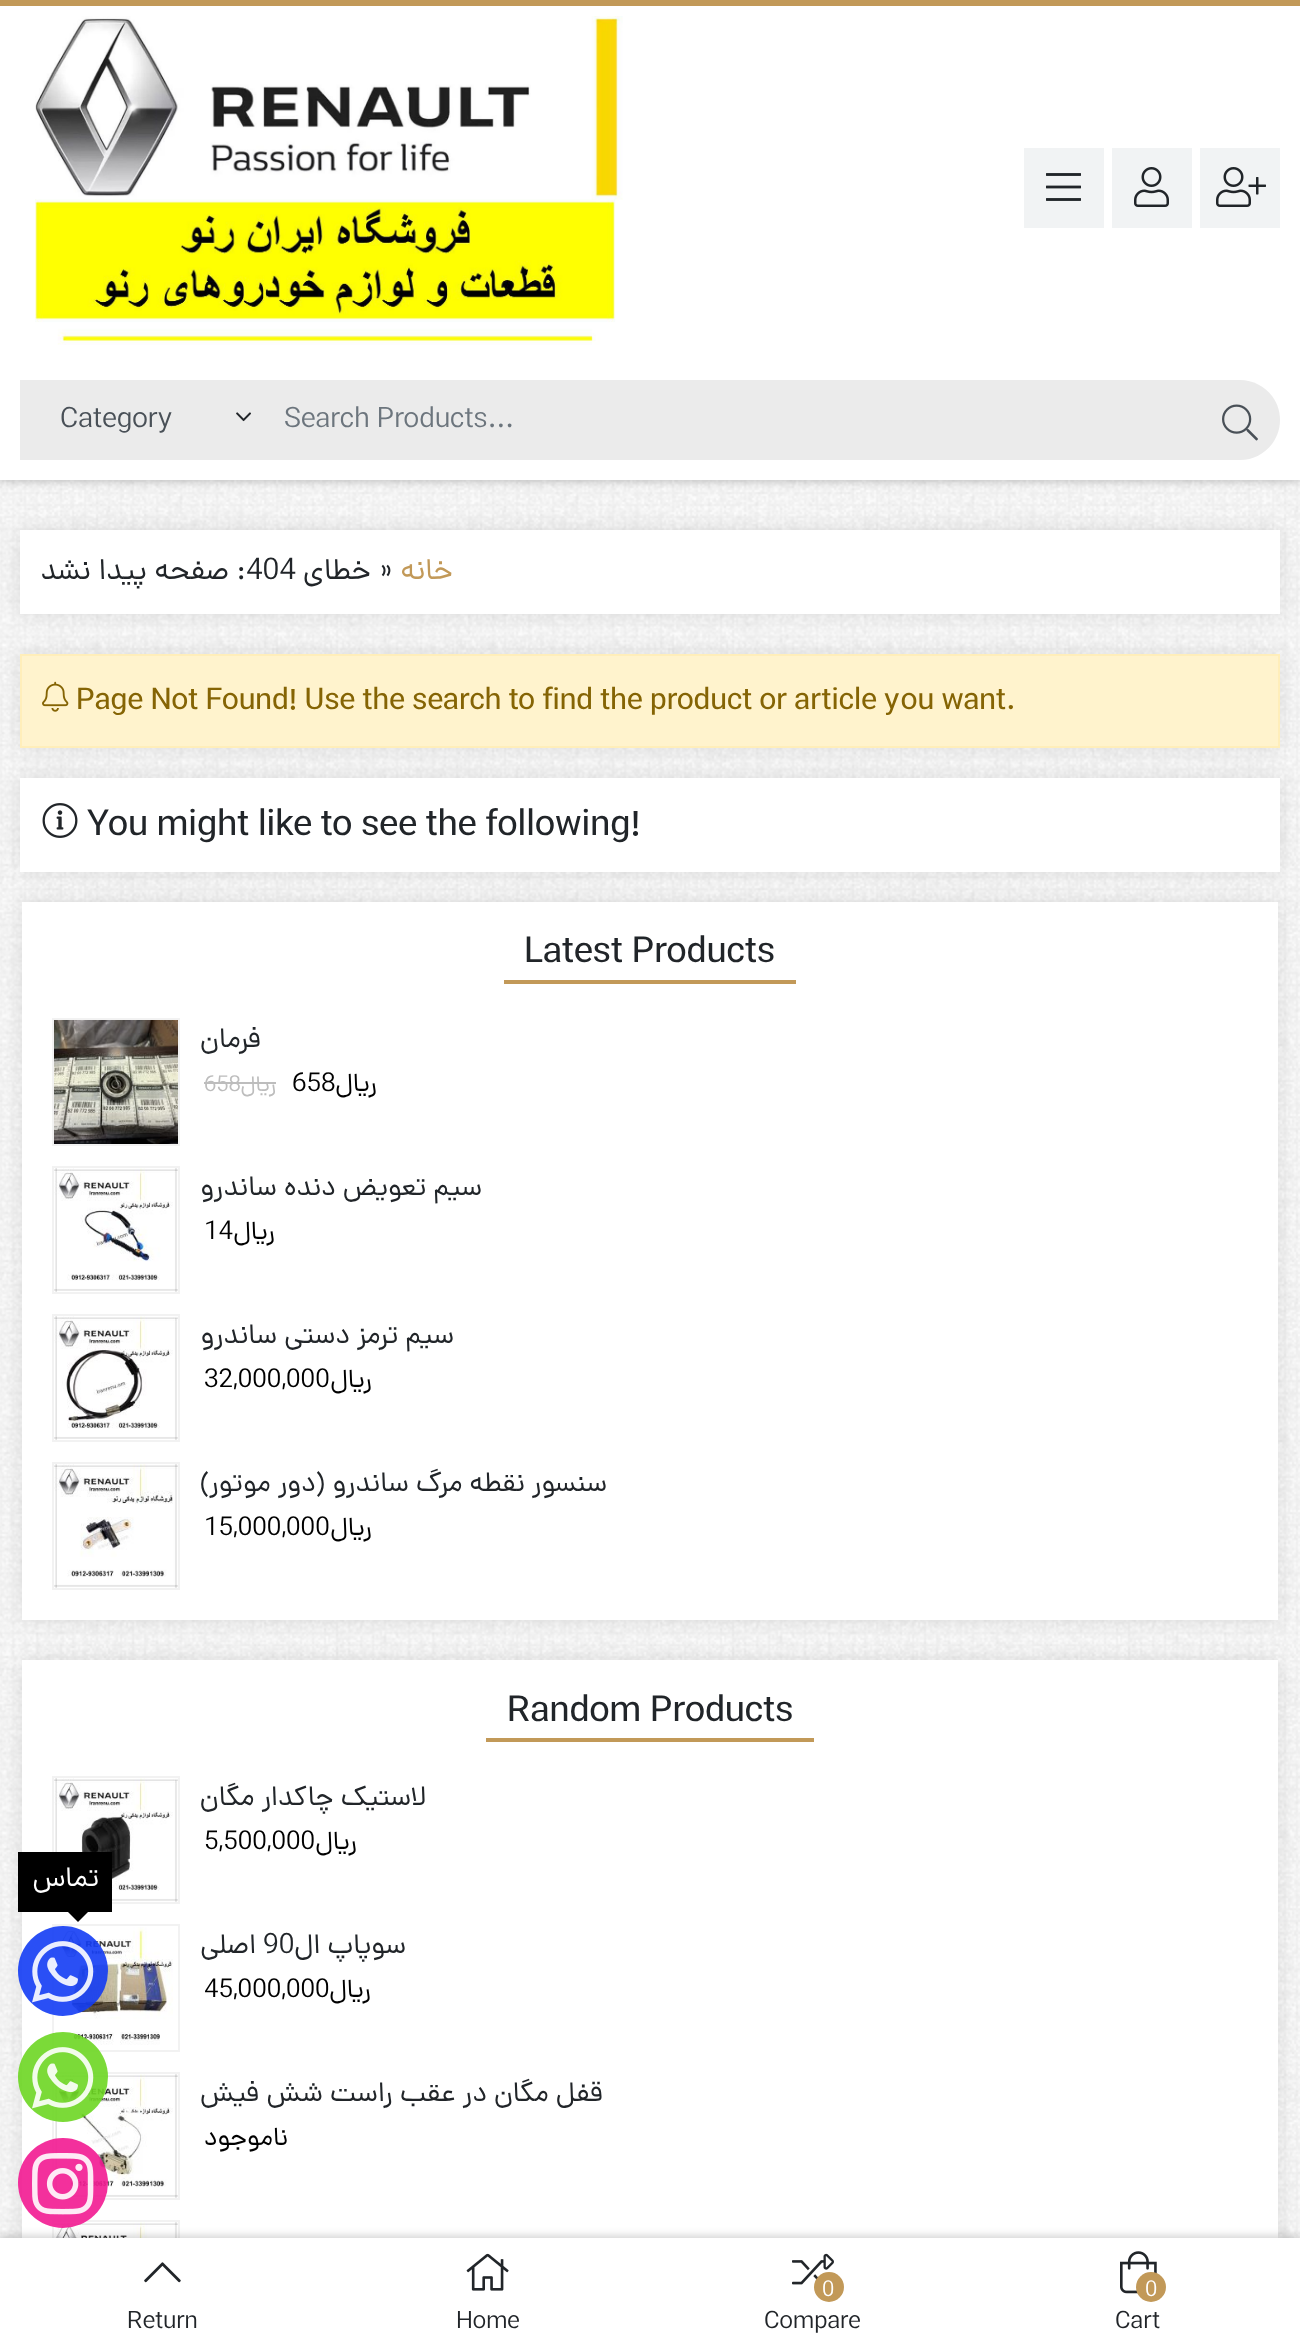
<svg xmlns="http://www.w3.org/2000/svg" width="1300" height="2347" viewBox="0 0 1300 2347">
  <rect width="100%" height="100%" fill="#fff"/>
  <image x="0" y="480" width="1300" height="1758" href="img/1.png"/>
  <path d="M0 2h1300v480H0z" fill="#00000030" filter="blur(4px)"/>
  <path d="M0 6h1300v474H0z" fill="#fff"/>
  <path d="M0 0h1300v6H0z" fill="#c29958"/>
  <image x="35" y="16" width="588" height="329" href="img/2.png"/>
  <path d="M1024 148h80v80H1024z" fill="#f1f3f4"/>
  <image x="1046" y="173" width="35" height="28" href="img/3.png"/>
  <path d="M1112 148h80v80H1112z" fill="#f1f3f4"/>
  <image x="1134" y="167" width="35" height="40" href="img/4.png"/>
  <path d="M1200 148h80v80H1200z" fill="#f1f3f4"/>
  <image x="1216" y="167" width="50" height="40" href="img/5.png"/>
  <path d="M20 380h1180v80H20z" fill="#ebebeb"/>
  <image x="236" y="412" width="15" height="10" href="img/6.png"/>
  <path d="M1200 380H1240C1262 380 1280 398 1280 420C1280 442 1262 460 1240 460H1200Z" fill="#ebebeb"/>
  <image x="1222" y="404" width="36" height="37" href="img/7.png"/>
  <path d="M20 530h1260v84H20z" fill="#0000001a" filter="blur(10px)"/>
  <path d="M20 530h1260v84H20z" fill="#fff"/>
  <path d="M20 654h1260v94H20z" fill="#0000001a" filter="blur(10px)"/>
  <path d="M21 655h1258v92H21z" fill="#fff3cd" stroke="#ffeeba" stroke-width="2"/>
  <image x="42" y="681" width="27" height="31" href="img/8.png"/>
  <path d="M20 778h1260v94H20z" fill="#0000001a" filter="blur(10px)"/>
  <path d="M20 778h1260v94H20z" fill="#fff"/>
  <image x="42" y="803" width="36" height="35" href="img/9.png"/>
  <path d="M22 902h1256v718H22z" fill="#0000001a" filter="blur(10px)"/>
  <path d="M22 902h1256v718H22z" fill="#fff"/>
  <path d="M504 980h292v4H504z" fill="#c29958"/>
  <path d="M53 1019h126v126H53z" fill="none" stroke="#f2f2f2" stroke-width="2"/>
  <image x="54" y="1020" width="124" height="124" href="img/10.png"/>
  <path d="M240 1082h36v2H240z" fill="#bdbdbd"/>
  <path d="M204 1082h36v2H204z" fill="#bdbdbd"/>
  <path d="M53 1167h126v126H53z" fill="none" stroke="#f2f2f2" stroke-width="2"/>
  <image x="54" y="1168" width="124" height="124" href="img/11.png"/>
  <path d="M53 1315h126v126H53z" fill="none" stroke="#f2f2f2" stroke-width="2"/>
  <image x="54" y="1316" width="124" height="124" href="img/12.png"/>
  <path d="M53 1463h126v126H53z" fill="none" stroke="#f2f2f2" stroke-width="2"/>
  <image x="54" y="1464" width="124" height="124" href="img/13.png"/>
  <path d="M22 1660h1256v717H22z" fill="#0000001a" filter="blur(10px)"/>
  <path d="M22 1660h1256v578H22z" fill="#fff"/>
  <path d="M486 1738h328v4H486z" fill="#c29958"/>
  <path d="M53 1777h126v126H53z" fill="none" stroke="#f2f2f2" stroke-width="2"/>
  <image x="54" y="1778" width="124" height="124" href="img/14.png"/>
  <path d="M53 1925h126v126H53z" fill="none" stroke="#f2f2f2" stroke-width="2"/>
  <image x="60" y="1927" width="113" height="118" href="img/15.png"/>
  <path d="M53 2073h126v126H53z" fill="none" stroke="#f2f2f2" stroke-width="2"/>
  <image x="54" y="2074" width="124" height="124" href="img/16.png"/>
  <path d="M53 2221h126v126H53z" fill="none" stroke="#f2f2f2" stroke-width="2"/>
  <image x="54" y="2222" width="124" height="16" href="img/17.png"/>
  <path d="M18 1852h94v60H18z" fill="#000"/>
  <path d="M66 1910H90L78 1922Z" fill="#000"/>
  <circle cx="63" cy="1971" r="45" fill="#133cf4e6"/>
  <image x="32" y="1941" width="62" height="62" href="img/18.png"/>
  <circle cx="63" cy="2077" r="45" fill="#6dd622e6"/>
  <image x="32" y="2047" width="62" height="62" href="img/19.png"/>
  <path d="M0 2236h1300v110H0z" fill="#00000030" filter="blur(4px)"/>
  <circle cx="63" cy="2183" r="45" fill="#f21a91e6"/>
  <image x="32" y="2153" width="62" height="62" href="img/20.png"/>
  <path d="M0 2238h1300v109H0z" fill="#fff"/>
  <image x="144" y="2262" width="37" height="21" href="img/21.png"/>
  <image x="466" y="2253" width="43" height="38" href="img/22.png"/>
  <image x="792" y="2253" width="42" height="32" href="img/23.png"/>
  <circle cx="829" cy="2287" r="15" fill="#c29958"/>
  <image x="1120" y="2251" width="37" height="43" href="img/24.png"/>
  <circle cx="1151" cy="2287" r="15" fill="#c29958"/>
  <text x="60" y="427" font-family="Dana" font-size="28" fill="#495057">Category</text>
  <text x="284" y="427" font-family="Dana" font-size="28" fill="#6c757d">Search Products...</text>
  <text x="246" y="579" font-family="Dana" font-size="30" direction="rtl" fill="#212529">: صفحه پیدا نشد</text>
  <text x="246" y="579" font-family="Dana" font-size="30" fill="#212529">404</text>
  <text x="371" y="579" font-family="Dana" font-size="30" direction="rtl" fill="#212529">خطای</text>
  <text x="379" y="579" font-family="Dana" font-size="30" fill="#212529">»</text>
  <text x="453" y="579" font-family="Dana" font-size="30" direction="rtl" fill="#c29958">خانه</text>
  <text x="76" y="709" font-family="Dana" font-size="30" font-weight="500" fill="#856404">Page Not Found! Use the search to find the product or article you want.</text>
  <g font-family="Dana" font-size="36" font-weight="500" fill="#212529">
    <text x="87" y="835">You might like to see the following!</text>
    <text x="524" y="962">Latest Products</text>
  </g>
  <text x="261" y="1047" font-family="Dana" font-size="28" direction="rtl" fill="#212529">فرمان</text>
  <text x="204" y="1091" font-family="Dana" font-size="22" fill="#bdbdbd">658</text>
  <text x="276" y="1091" font-family="Dana" font-size="22" direction="rtl" fill="#bdbdbd">ریال</text>
  <text x="292" y="1091" font-family="Dana" font-size="26" fill="#000">658</text>
  <text x="377" y="1091" font-family="Dana" font-size="26" direction="rtl" fill="#000">ریال</text>
  <text x="482" y="1195" font-family="Dana" font-size="28" direction="rtl" fill="#212529">سیم تعویض دنده ساندرو</text>
  <text x="204" y="1239" font-family="Dana" font-size="26" fill="#000">14</text>
  <text x="275" y="1239" font-family="Dana" font-size="26" direction="rtl" fill="#000">ریال</text>
  <text x="454" y="1343" font-family="Dana" font-size="28" direction="rtl" fill="#212529">سیم ترمز دستی ساندرو</text>
  <text x="204" y="1387" font-family="Dana" font-size="26" fill="#000">32,000,000</text>
  <text x="372" y="1387" font-family="Dana" font-size="26" direction="rtl" fill="#000">ریال</text>
  <text x="607" y="1491" font-family="Dana" font-size="28" direction="rtl" fill="#212529">سنسور نقطه مرگ ساندرو (دور موتور)</text>
  <text x="204" y="1535" font-family="Dana" font-size="26" fill="#000">15,000,000</text>
  <text x="372" y="1535" font-family="Dana" font-size="26" direction="rtl" fill="#000">ریال</text>
  <text x="507" y="1721" font-family="Dana" font-size="36" font-weight="500" fill="#212529">Random Products</text>
  <text x="426" y="1805" font-family="Dana" font-size="28" direction="rtl" fill="#212529">لاستیک چاکدار مگان</text>
  <text x="204" y="1849" font-family="Dana" font-size="26" fill="#000">5,500,000</text>
  <text x="357" y="1849" font-family="Dana" font-size="26" direction="rtl" fill="#000">ریال</text>
  <text x="256" y="1953" font-family="Dana" font-size="28" direction="rtl" fill="#212529">اصلی</text>
  <text x="263" y="1953" font-family="Dana" font-size="28" fill="#212529">90</text>
  <text x="406" y="1953" font-family="Dana" font-size="28" direction="rtl" fill="#212529">سوپاپ ال</text>
  <text x="204" y="1997" font-family="Dana" font-size="26" fill="#000">45,000,000</text>
  <text x="371" y="1997" font-family="Dana" font-size="26" direction="rtl" fill="#000">ریال</text>
  <text x="603" y="2101" font-family="Dana" font-size="28" direction="rtl" fill="#212529">قفل مگان در عقب راست شش فیش</text>
  <text x="288" y="2145" font-family="Dana" font-size="26" direction="rtl" fill="#000">ناموجود</text>
  <text x="99" y="1886" font-family="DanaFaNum" font-size="28" direction="rtl" fill="#fff">تماس</text>
  <g font-family="Dana" font-size="24" fill="#212529">
    <text x="127" y="2328">Return</text>
    <text x="456" y="2328">Home</text>
  </g>
  <text x="822" y="2296" font-family="Dana" font-size="22" fill="#fff">0</text>
  <text x="764" y="2328" font-family="Dana" font-size="24" fill="#212529">Compare</text>
  <text x="1145" y="2296" font-family="Dana" font-size="22" fill="#fff">0</text>
  <text x="1115" y="2328" font-family="Dana" font-size="24" fill="#212529">Cart</text>
</svg>
